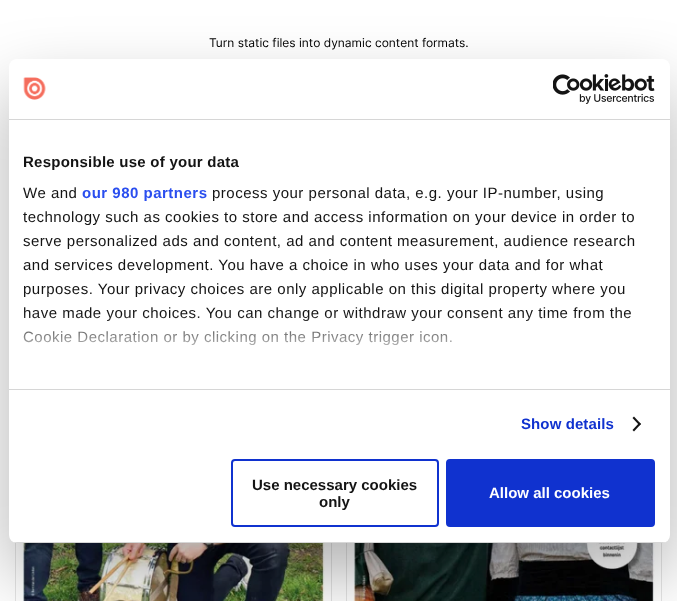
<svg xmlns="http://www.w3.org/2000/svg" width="677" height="601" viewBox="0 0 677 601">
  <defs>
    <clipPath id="clip1"><rect x="9" y="59" width="661" height="484" rx="8"/></clipPath>
    <linearGradient id="g1" gradientUnits="userSpaceOnUse" x1="333" y1="389" x2="333" y2="314"><stop offset="0" stop-color="#fff"/><stop offset="0.5" stop-color="#fff" stop-opacity="0.8"/><stop offset="1" stop-color="#fff" stop-opacity="0"/></linearGradient>
  </defs>
  <rect width="100%" height="100%" fill="#fff"/>
  <path d="M15.5 173.5h316v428H15.5z" fill="none" stroke="#e5e5e5"/>
  <image x="22" y="543" width="303" height="58" href="img/1.png"/>
  <path d="M346.5 173.5h315v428H346.5z" fill="none" stroke="#e5e5e5"/>
  <image x="353" y="543" width="302" height="58" href="img/2.png"/>
  <rect x="9" y="91" width="661" height="484" rx="8" fill="#0000004d" filter="blur(34px)"/>
  <rect x="9" y="59" width="661" height="484" rx="8" fill="#fff"/>
  <path d="M9 119h661v1H9z" fill="#d6d6d6"/>
  <image x="23" y="77" width="23" height="23" href="img/3.png"/>
  <image x="553" y="74" width="102" height="30" href="img/4.png"/>
  <path d="M9 389h661v1H9z" fill="#d6d6d6"/>
  <path d="M634 416.5L641 424L639.5 425.5L632.5 418Z" fill="#141414"/>
  <path d="M639.5 422.5L641 424L634 431.5L632.5 430Z" fill="#141414"/>
  <g clip-path="url(#clip1)">
    <path d="M9 542h661v1H9z" fill="#d6d6d6"/>
  </g>
  <rect x="232" y="460" width="206" height="66" rx="3" fill="none" stroke="#1032cf" stroke-width="2"/>
  <rect x="447" y="460" width="207" height="66" rx="3" fill="#1032cf" stroke="#1032cf" stroke-width="2"/>
  <text x="209" y="47" font-family="Inter" font-size="12" fill="#000">Turn static files into dynamic content formats.</text>
  <text x="23" y="167" font-family="Liberation Sans" font-size="15" font-weight="bold" letter-spacing="0.25" fill="#141414">Responsible use of your data</text>
  <text x="23" y="198" font-family="Liberation Sans" font-size="15" letter-spacing="0.5" fill="#141414">We and</text>
  <text x="82" y="198" font-family="Liberation Sans" font-size="15" font-weight="bold" letter-spacing="0.5" fill="#2a4eef">our 980 partners</text>
  <g font-family="Liberation Sans" font-size="15" letter-spacing="0.5" fill="#141414">
    <text x="212" y="198">process your personal data, e.g. your IP-number, using</text>
    <text x="23" y="222">technology such as cookies to store and access information on your device in order to</text>
    <text x="23" y="246">serve personalized ads and content, ad and content measurement, audience research</text>
    <text x="23" y="270">and services development. You have a choice in who uses your data and for what</text>
    <text x="23" y="294">purposes. Your privacy choices are only applicable on this digital property where you</text>
    <text x="23" y="318">have made your choices. You can change or withdraw your consent any time from the</text>
    <text x="23" y="342">Cookie Declaration or by clicking on the Privacy trigger icon.</text>
  </g>
  <path d="M23 315h608v31H23z" fill="url(#g1)"/>
  <text x="521" y="429" font-family="Liberation Sans" font-size="15" font-weight="bold" letter-spacing="0.1" fill="#1032cf">Show details</text>
  <g font-family="Liberation Sans" font-size="15" font-weight="bold" fill="#141414">
    <text x="252" y="490">Use necessary cookies</text>
    <text x="319" y="507">only</text>
  </g>
  <text x="489" y="498" font-family="Liberation Sans" font-size="15" font-weight="bold" fill="#fff">Allow all cookies</text>
</svg>
